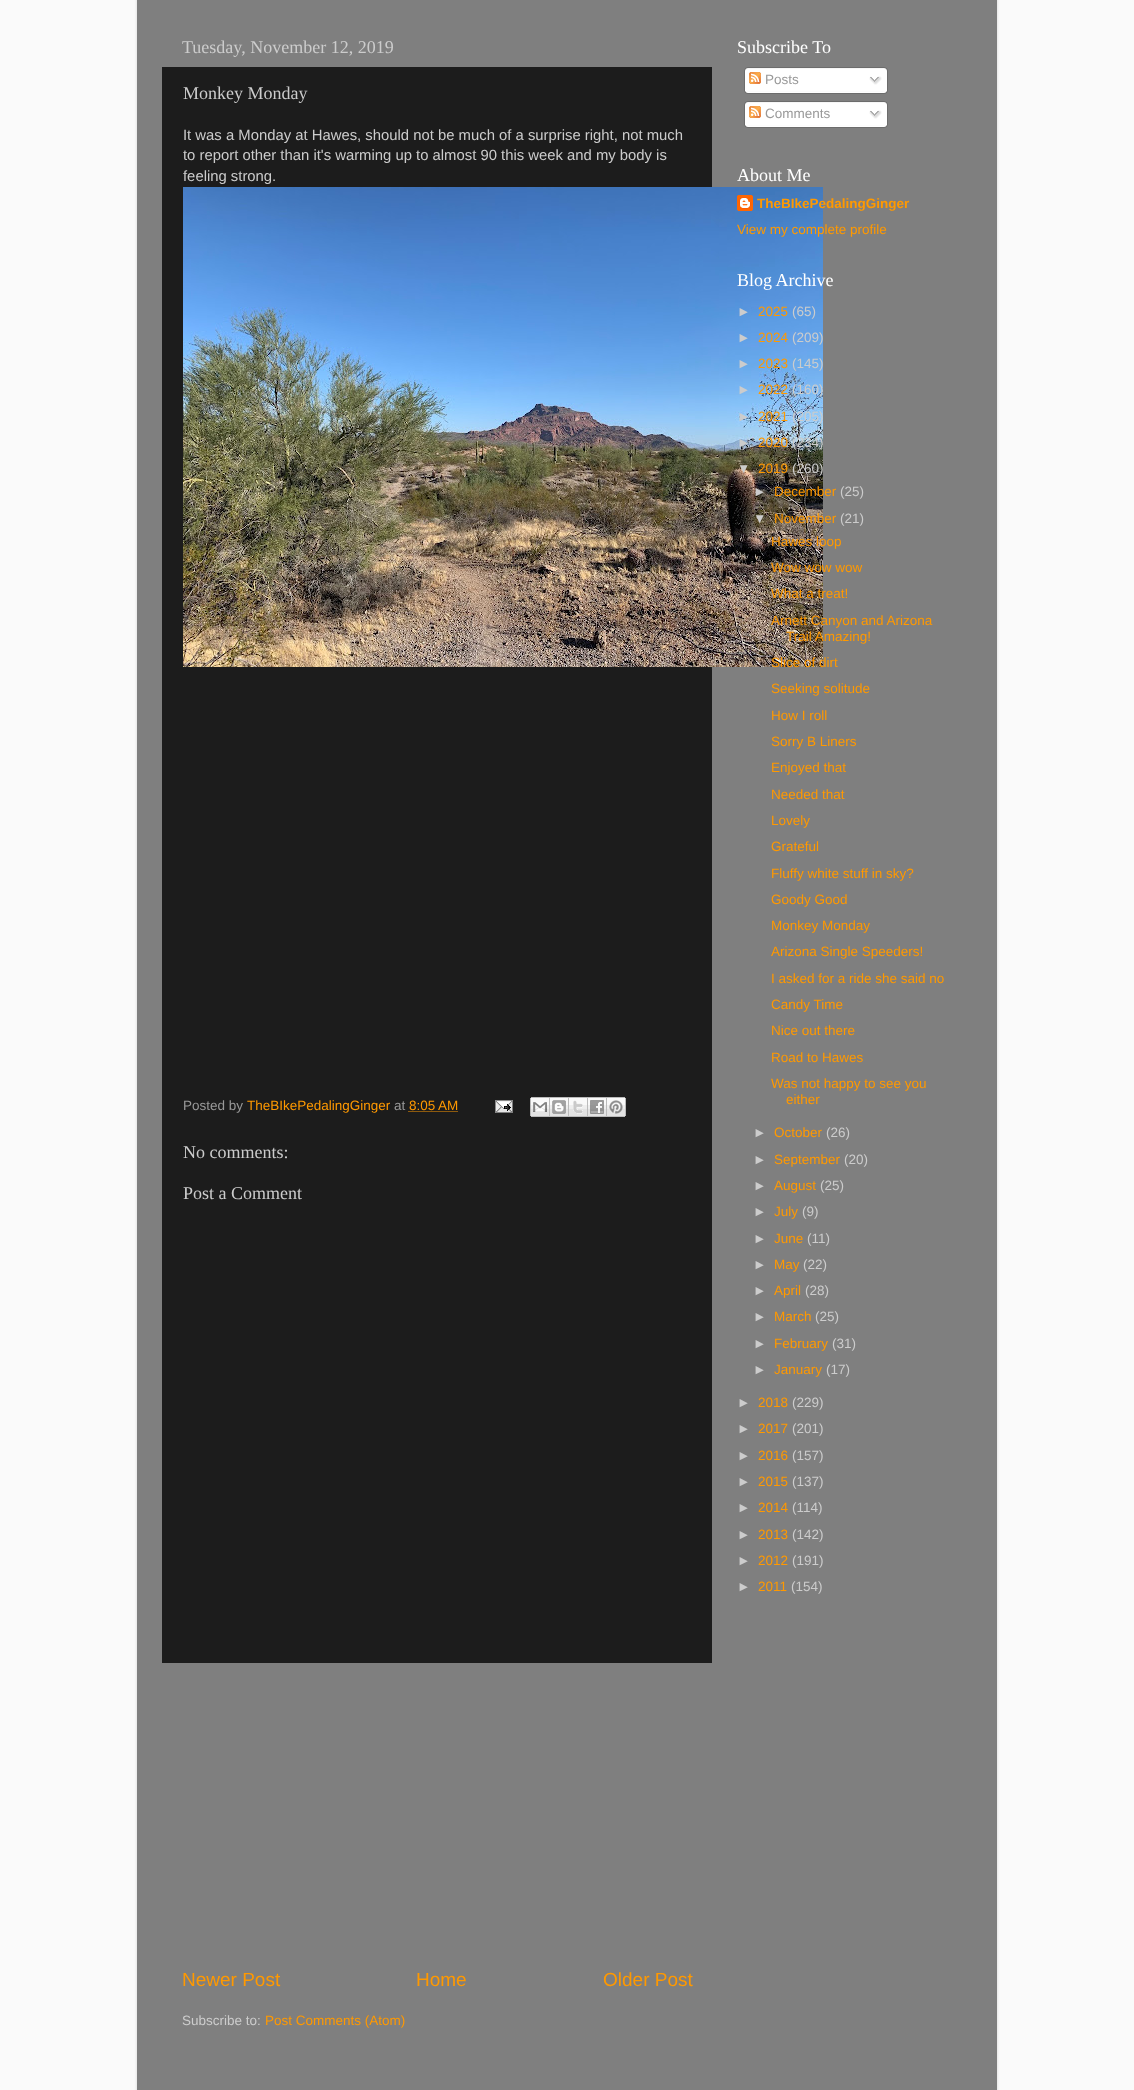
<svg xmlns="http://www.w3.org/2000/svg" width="1134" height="2090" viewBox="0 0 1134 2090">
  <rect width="100%" height="100%" fill="#fafafa"/>
  <path d="M137 -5h860v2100H137z" fill="#00000026" filter="blur(1.5px)"/>
  <path d="M137 0h860v2090H137z" fill="#7f7f7f"/>
  <path d="M162 67h550v1596H162z" fill="#1c1c1c"/>
  <image x="183" y="187" width="640" height="480" href="img/1.png"/>
  <path d="M408.5 1111.5H458" fill="none" stroke="#f90" stroke-dasharray="1 1"/>
  <image x="495" y="1100" width="18" height="13" href="img/2.png"/>
  <image x="530" y="1097" width="20" height="20" href="img/3.png"/>
  <image x="550" y="1097" width="19" height="20" href="img/4.png"/>
  <image x="569" y="1097" width="19" height="20" href="img/5.png"/>
  <image x="588" y="1097" width="19" height="20" href="img/6.png"/>
  <image x="607" y="1097" width="19" height="20" href="img/7.png"/>
  <image x="744" y="67" width="144" height="24" href="img/8.png"/>
  <image x="749" y="72" width="12" height="12" href="img/9.png"/>
  <image x="869" y="76" width="13" height="9" href="img/10.png"/>
  <image x="744" y="91" width="144" height="3" href="img/11.png"/>
  <image x="744" y="101" width="144" height="24" href="img/8.png"/>
  <image x="749" y="106" width="12" height="12" href="img/9.png"/>
  <image x="869" y="110" width="13" height="9" href="img/10.png"/>
  <image x="744" y="125" width="144" height="3" href="img/11.png"/>
  <image x="737" y="195" width="16" height="16" href="img/12.png"/>
  <g font-family="Liberation Serif" font-size="18" fill="#ccc">
    <text x="182" y="53">Tuesday, November 12, 2019</text>
    <text x="183" y="99">Monkey Monday</text>
  </g>
  <g font-family="Liberation Sans" font-size="14.85" fill="#ccc">
    <text x="183" y="140">It was a Monday at Hawes, should not be much of a surprise right, not much</text>
    <text x="183" y="160">to report other than it's warming up to almost 90 this week and my body is</text>
    <text x="183" y="181">feeling strong.</text>
  </g>
  <text x="183" y="1110" font-family="Liberation Sans" font-size="13.5" fill="#999">Posted by</text>
  <text x="247" y="1110" font-family="Liberation Sans" font-size="13.5" fill="#f90">TheBIkePedalingGinger</text>
  <text x="394" y="1110" font-family="Liberation Sans" font-size="13.5" fill="#999">at</text>
  <text x="409" y="1110" font-family="Liberation Sans" font-size="13.5" fill="#f90">8:05 AM</text>
  <g font-family="Liberation Serif" font-size="18" fill="#ccc">
    <text x="183" y="1158">No comments:</text>
    <text x="183" y="1199">Post a Comment</text>
  </g>
  <g font-family="Liberation Sans" font-size="19" fill="#f90">
    <text x="182" y="1986">Newer Post</text>
    <text x="416" y="1986">Home</text>
    <text x="603" y="1986">Older Post</text>
  </g>
  <text x="182" y="2025" font-family="Liberation Sans" font-size="13.5" fill="#ccc">Subscribe to:</text>
  <text x="265" y="2025" font-family="Liberation Sans" font-size="13.5" fill="#f90">Post Comments (Atom)</text>
  <text x="737" y="53" font-family="Liberation Serif" font-size="18" fill="#fff">Subscribe To</text>
  <g font-family="Liberation Sans" font-size="13.5" fill="#999">
    <text x="765" y="84">Posts</text>
    <text x="765" y="118">Comments</text>
  </g>
  <text x="737" y="181" font-family="Liberation Serif" font-size="18" fill="#fff">About Me</text>
  <text x="757" y="208" font-family="Liberation Sans" font-size="13.5" font-weight="bold" fill="#f90">TheBIkePedalingGinger</text>
  <text x="737" y="234" font-family="Liberation Sans" font-size="13.5" fill="#f90">View my complete profile</text>
  <text x="737" y="286" font-family="Liberation Serif" font-size="18" fill="#fff">Blog Archive</text>
  <text x="737" y="316" font-family="Liberation Sans" font-size="13.5" fill="#ccc">►</text>
  <text x="758" y="316" font-family="Liberation Sans" font-size="13.5" fill="#f90">2025</text>
  <g font-family="Liberation Sans" font-size="13.5" fill="#ccc">
    <text x="792" y="316">(65)</text>
    <text x="737" y="342">►</text>
  </g>
  <text x="758" y="342" font-family="Liberation Sans" font-size="13.5" fill="#f90">2024</text>
  <g font-family="Liberation Sans" font-size="13.5" fill="#ccc">
    <text x="792" y="342">(209)</text>
    <text x="737" y="368">►</text>
  </g>
  <text x="758" y="368" font-family="Liberation Sans" font-size="13.5" fill="#f90">2023</text>
  <g font-family="Liberation Sans" font-size="13.5" fill="#ccc">
    <text x="792" y="368">(145)</text>
    <text x="737" y="394">►</text>
  </g>
  <text x="758" y="394" font-family="Liberation Sans" font-size="13.5" fill="#f90">2022</text>
  <g font-family="Liberation Sans" font-size="13.5" fill="#ccc">
    <text x="792" y="394">(160)</text>
    <text x="737" y="421">►</text>
  </g>
  <text x="758" y="421" font-family="Liberation Sans" font-size="13.5" fill="#f90">2021</text>
  <g font-family="Liberation Sans" font-size="13.5" fill="#ccc">
    <text x="792" y="421">(205)</text>
    <text x="737" y="447">►</text>
  </g>
  <text x="758" y="447" font-family="Liberation Sans" font-size="13.5" fill="#f90">2020</text>
  <g font-family="Liberation Sans" font-size="13.5" fill="#ccc">
    <text x="792" y="447">(234)</text>
    <text x="737" y="473">▼</text>
  </g>
  <text x="758" y="473" font-family="Liberation Sans" font-size="13.5" fill="#f90">2019</text>
  <g font-family="Liberation Sans" font-size="13.5" fill="#ccc">
    <text x="792" y="473">(260)</text>
    <text x="753" y="496">►</text>
  </g>
  <text x="774" y="496" font-family="Liberation Sans" font-size="13.5" fill="#f90">December</text>
  <g font-family="Liberation Sans" font-size="13.5" fill="#ccc">
    <text x="840" y="496">(25)</text>
    <text x="753" y="523">▼</text>
  </g>
  <text x="774" y="523" font-family="Liberation Sans" font-size="13.5" fill="#f90">November</text>
  <text x="840" y="523" font-family="Liberation Sans" font-size="13.5" fill="#ccc">(21)</text>
  <g font-family="Liberation Sans" font-size="13.5" fill="#f90">
    <text x="771" y="546">Hawes loop</text>
    <text x="771" y="572">Wow wow wow</text>
    <text x="771" y="598">What a treat!</text>
    <text x="771" y="625">Arnett Canyon and Arizona</text>
    <text x="786" y="641">Trail Amazing!</text>
    <text x="771" y="667">Slice of dirt</text>
    <text x="771" y="693">Seeking solitude</text>
    <text x="771" y="720">How I roll</text>
    <text x="771" y="746">Sorry B Liners</text>
    <text x="771" y="772">Enjoyed that</text>
    <text x="771" y="799">Needed that</text>
    <text x="771" y="825">Lovely</text>
    <text x="771" y="851">Grateful</text>
    <text x="771" y="878">Fluffy white stuff in sky?</text>
    <text x="771" y="904">Goody Good</text>
    <text x="771" y="930">Monkey Monday</text>
    <text x="771" y="956">Arizona Single Speeders!</text>
    <text x="771" y="983">I asked for a ride she said no</text>
    <text x="771" y="1009">Candy Time</text>
    <text x="771" y="1035">Nice out there</text>
    <text x="771" y="1062">Road to Hawes</text>
    <text x="771" y="1088">Was not happy to see you</text>
    <text x="786" y="1104">either</text>
  </g>
  <text x="753" y="1137" font-family="Liberation Sans" font-size="13.5" fill="#ccc">►</text>
  <text x="774" y="1137" font-family="Liberation Sans" font-size="13.5" fill="#f90">October</text>
  <g font-family="Liberation Sans" font-size="13.5" fill="#ccc">
    <text x="826" y="1137">(26)</text>
    <text x="753" y="1164">►</text>
  </g>
  <text x="774" y="1164" font-family="Liberation Sans" font-size="13.5" fill="#f90">September</text>
  <g font-family="Liberation Sans" font-size="13.5" fill="#ccc">
    <text x="844" y="1164">(20)</text>
    <text x="753" y="1190">►</text>
  </g>
  <text x="774" y="1190" font-family="Liberation Sans" font-size="13.5" fill="#f90">August</text>
  <g font-family="Liberation Sans" font-size="13.5" fill="#ccc">
    <text x="820" y="1190">(25)</text>
    <text x="753" y="1216">►</text>
  </g>
  <text x="774" y="1216" font-family="Liberation Sans" font-size="13.5" fill="#f90">July</text>
  <g font-family="Liberation Sans" font-size="13.5" fill="#ccc">
    <text x="802" y="1216">(9)</text>
    <text x="753" y="1243">►</text>
  </g>
  <text x="774" y="1243" font-family="Liberation Sans" font-size="13.5" fill="#f90">June</text>
  <g font-family="Liberation Sans" font-size="13.5" fill="#ccc">
    <text x="807" y="1243">(11)</text>
    <text x="753" y="1269">►</text>
  </g>
  <text x="774" y="1269" font-family="Liberation Sans" font-size="13.5" fill="#f90">May</text>
  <g font-family="Liberation Sans" font-size="13.5" fill="#ccc">
    <text x="803" y="1269">(22)</text>
    <text x="753" y="1295">►</text>
  </g>
  <text x="774" y="1295" font-family="Liberation Sans" font-size="13.5" fill="#f90">April</text>
  <g font-family="Liberation Sans" font-size="13.5" fill="#ccc">
    <text x="805" y="1295">(28)</text>
    <text x="753" y="1321">►</text>
  </g>
  <text x="774" y="1321" font-family="Liberation Sans" font-size="13.5" fill="#f90">March</text>
  <g font-family="Liberation Sans" font-size="13.5" fill="#ccc">
    <text x="815" y="1321">(25)</text>
    <text x="753" y="1348">►</text>
  </g>
  <text x="774" y="1348" font-family="Liberation Sans" font-size="13.5" fill="#f90">February</text>
  <g font-family="Liberation Sans" font-size="13.5" fill="#ccc">
    <text x="832" y="1348">(31)</text>
    <text x="753" y="1374">►</text>
  </g>
  <text x="774" y="1374" font-family="Liberation Sans" font-size="13.5" fill="#f90">January</text>
  <g font-family="Liberation Sans" font-size="13.5" fill="#ccc">
    <text x="826" y="1374">(17)</text>
    <text x="737" y="1407">►</text>
  </g>
  <text x="758" y="1407" font-family="Liberation Sans" font-size="13.5" fill="#f90">2018</text>
  <g font-family="Liberation Sans" font-size="13.5" fill="#ccc">
    <text x="792" y="1407">(229)</text>
    <text x="737" y="1433">►</text>
  </g>
  <text x="758" y="1433" font-family="Liberation Sans" font-size="13.5" fill="#f90">2017</text>
  <g font-family="Liberation Sans" font-size="13.5" fill="#ccc">
    <text x="792" y="1433">(201)</text>
    <text x="737" y="1460">►</text>
  </g>
  <text x="758" y="1460" font-family="Liberation Sans" font-size="13.5" fill="#f90">2016</text>
  <g font-family="Liberation Sans" font-size="13.5" fill="#ccc">
    <text x="792" y="1460">(157)</text>
    <text x="737" y="1486">►</text>
  </g>
  <text x="758" y="1486" font-family="Liberation Sans" font-size="13.5" fill="#f90">2015</text>
  <g font-family="Liberation Sans" font-size="13.5" fill="#ccc">
    <text x="792" y="1486">(137)</text>
    <text x="737" y="1512">►</text>
  </g>
  <text x="758" y="1512" font-family="Liberation Sans" font-size="13.5" fill="#f90">2014</text>
  <g font-family="Liberation Sans" font-size="13.5" fill="#ccc">
    <text x="792" y="1512">(114)</text>
    <text x="737" y="1539">►</text>
  </g>
  <text x="758" y="1539" font-family="Liberation Sans" font-size="13.5" fill="#f90">2013</text>
  <g font-family="Liberation Sans" font-size="13.5" fill="#ccc">
    <text x="792" y="1539">(142)</text>
    <text x="737" y="1565">►</text>
  </g>
  <text x="758" y="1565" font-family="Liberation Sans" font-size="13.5" fill="#f90">2012</text>
  <g font-family="Liberation Sans" font-size="13.5" fill="#ccc">
    <text x="792" y="1565">(191)</text>
    <text x="737" y="1591">►</text>
  </g>
  <text x="758" y="1591" font-family="Liberation Sans" font-size="13.5" fill="#f90">2011</text>
  <text x="791" y="1591" font-family="Liberation Sans" font-size="13.5" fill="#ccc">(154)</text>
</svg>
